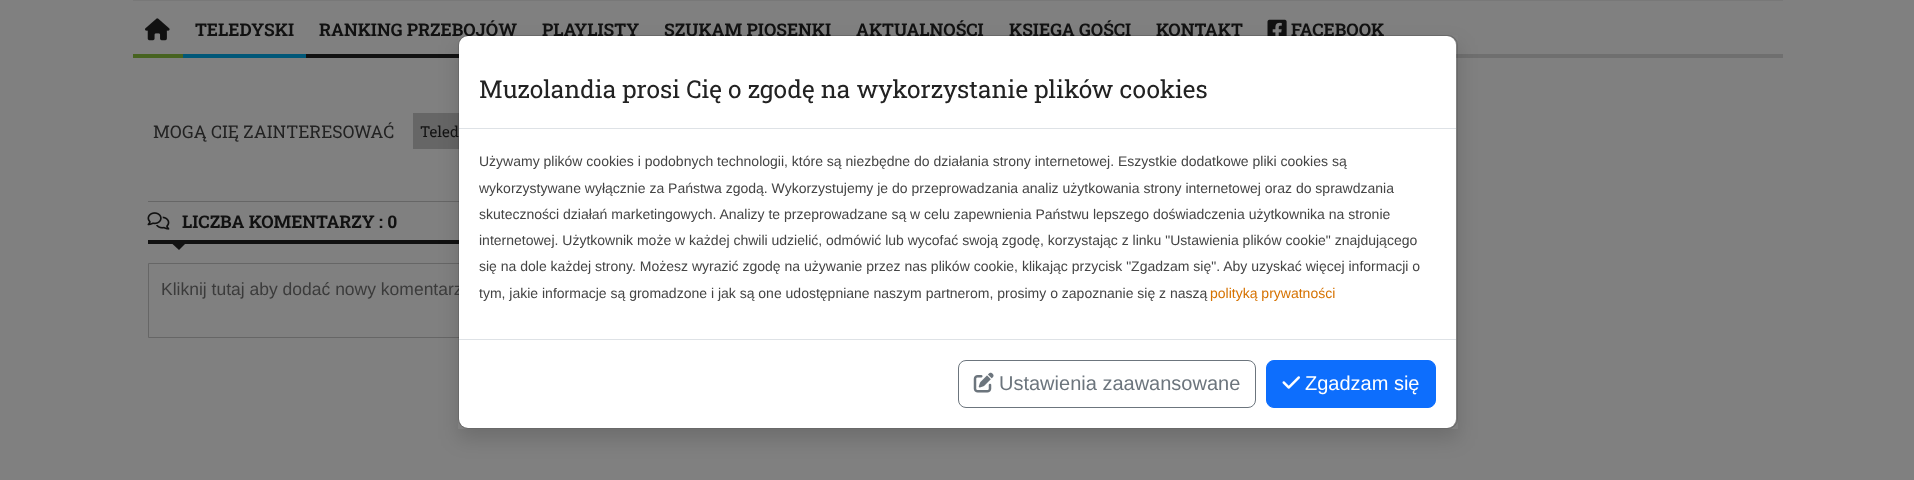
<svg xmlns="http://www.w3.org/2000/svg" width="1914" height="480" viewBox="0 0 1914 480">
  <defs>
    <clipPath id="clip1"><path d="M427 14H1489V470H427ZM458 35H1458V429H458Z" clip-rule="evenodd"/></clipPath>
  </defs>
  <rect width="100%" height="100%" fill="#808080"/>
  <path d="M133 0h1650v1H133z" fill="#787878"/>
  <path d="M1456 54h327v4H1456z" fill="#6f6f6f"/>
  <image x="145" y="18" width="25" height="23" href="img/1.png"/>
  <path d="M133 54h50v4H133z" fill="#476320"/>
  <path d="M183 54h123v4H183z" fill="#005778"/>
  <path d="M306 54h153v4H306z" fill="#111"/>
  <image x="1267" y="19" width="20" height="17" href="img/2.png"/>
  <path d="M413 113h46v36H413z" fill="#666"/>
  <path d="M148 201h311v1H148z" fill="#666"/>
  <path d="M148 240h311v4H148z" fill="#111"/>
  <image x="147" y="212" width="23" height="18" href="img/3.png"/>
  <path d="M172.5 244H185L179 250Z" fill="#111"/>
  <path d="M148.5 263.5h1214v74H148.5z" fill="none" stroke="#666"/>
  <g clip-path="url(#clip1)">
    <path d="M458 45h1000v394H458z" fill="#00000026" filter="blur(10px)"/>
  </g>
  <g font-family="Roboto Slab" font-size="17.5" font-weight="bold" fill="#111">
    <text x="195" y="36">TELEDYSKI</text>
    <text x="319" y="36">RANKING PRZEBOJÓW</text>
    <text x="542" y="36">PLAYLISTY</text>
    <text x="664" y="36">SZUKAM PIOSENKI</text>
    <text x="856" y="36">AKTUALNOŚCI</text>
    <text x="1009" y="36">KSIĘGA GOŚCI</text>
    <text x="1156" y="36">KONTAKT</text>
    <text x="1291" y="36">FACEBOOK</text>
  </g>
  <text x="153" y="138" font-family="Roboto Slab" font-size="17.5" fill="#222">MOGĄ CIĘ ZAINTERESOWAĆ</text>
  <text x="420" y="137" font-family="Roboto Slab" font-size="15" fill="#111">Teled</text>
  <text x="182" y="228" font-family="Roboto Slab" font-size="17.5" font-weight="bold" fill="#111">LICZBA KOMENTARZY : 0</text>
  <text x="161" y="295" font-family="Liberation Sans" font-size="17.5" fill="#3b3b3b">Kliknij tutaj aby dodać nowy komentarz</text>
  <rect x="459" y="36" width="997" height="392" rx="9" fill="#fff"/>
  <rect x="458.5" y="35.5" width="999" height="393" rx="9.5" fill="none" stroke="#0000002e"/>
  <path d="M459 128h997v1H459z" fill="#dee2e6"/>
  <text x="479" y="98" font-family="Roboto Slab" font-size="24.5" fill="#222">Muzolandia prosi Cię o zgodę na wykorzystanie plików cookies</text>
  <g font-family="Liberation Sans" font-size="14" fill="#444">
    <text x="479" y="166">Używamy plików cookies i podobnych technologii, które są niezbędne do działania strony internetowej. Eszystkie dodatkowe pliki cookies są</text>
    <text x="479" y="193">wykorzystywane wyłącznie za Państwa zgodą. Wykorzystujemy je do przeprowadzania analiz użytkowania strony internetowej oraz do sprawdzania</text>
    <text x="479" y="219">skuteczności działań marketingowych. Analizy te przeprowadzane są w celu zapewnienia Państwu lepszego doświadczenia użytkownika na stronie</text>
    <text x="479" y="245">internetowej. Użytkownik może w każdej chwili udzielić, odmówić lub wycofać swoją zgodę, korzystając z linku "Ustawienia plików cookie" znajdującego</text>
    <text x="479" y="271">się na dole każdej strony. Możesz wyrazić zgodę na używanie przez nas plików cookie, klikając przycisk "Zgadzam się". Aby uzyskać więcej informacji o</text>
    <text x="479" y="298">tym, jakie informacje są gromadzone i jak są one udostępniane naszym partnerom, prosimy o zapoznanie się z naszą</text>
  </g>
  <text x="1210" y="298" font-family="Liberation Sans" font-size="14" fill="#d67200">polityką prywatności</text>
  <path d="M459 339h997v1H459z" fill="#dee2e6"/>
  <rect x="958.5" y="360.5" width="297" height="47" rx="7.5" fill="none" stroke="#6c757d"/>
  <image x="973" y="372" width="21" height="21" href="img/4.png"/>
  <text x="999" y="390" font-family="Liberation Sans" font-size="20" fill="#6c757d">Ustawienia zaawansowane</text>
  <rect x="1266.5" y="360.5" width="169" height="47" rx="7.5" fill="#0d6efd" stroke="#0d6efd"/>
  <image x="1282" y="376" width="18" height="13" href="img/5.png"/>
  <text x="1305" y="390" font-family="Liberation Sans" font-size="20" fill="#fff">Zgadzam się</text>
</svg>
